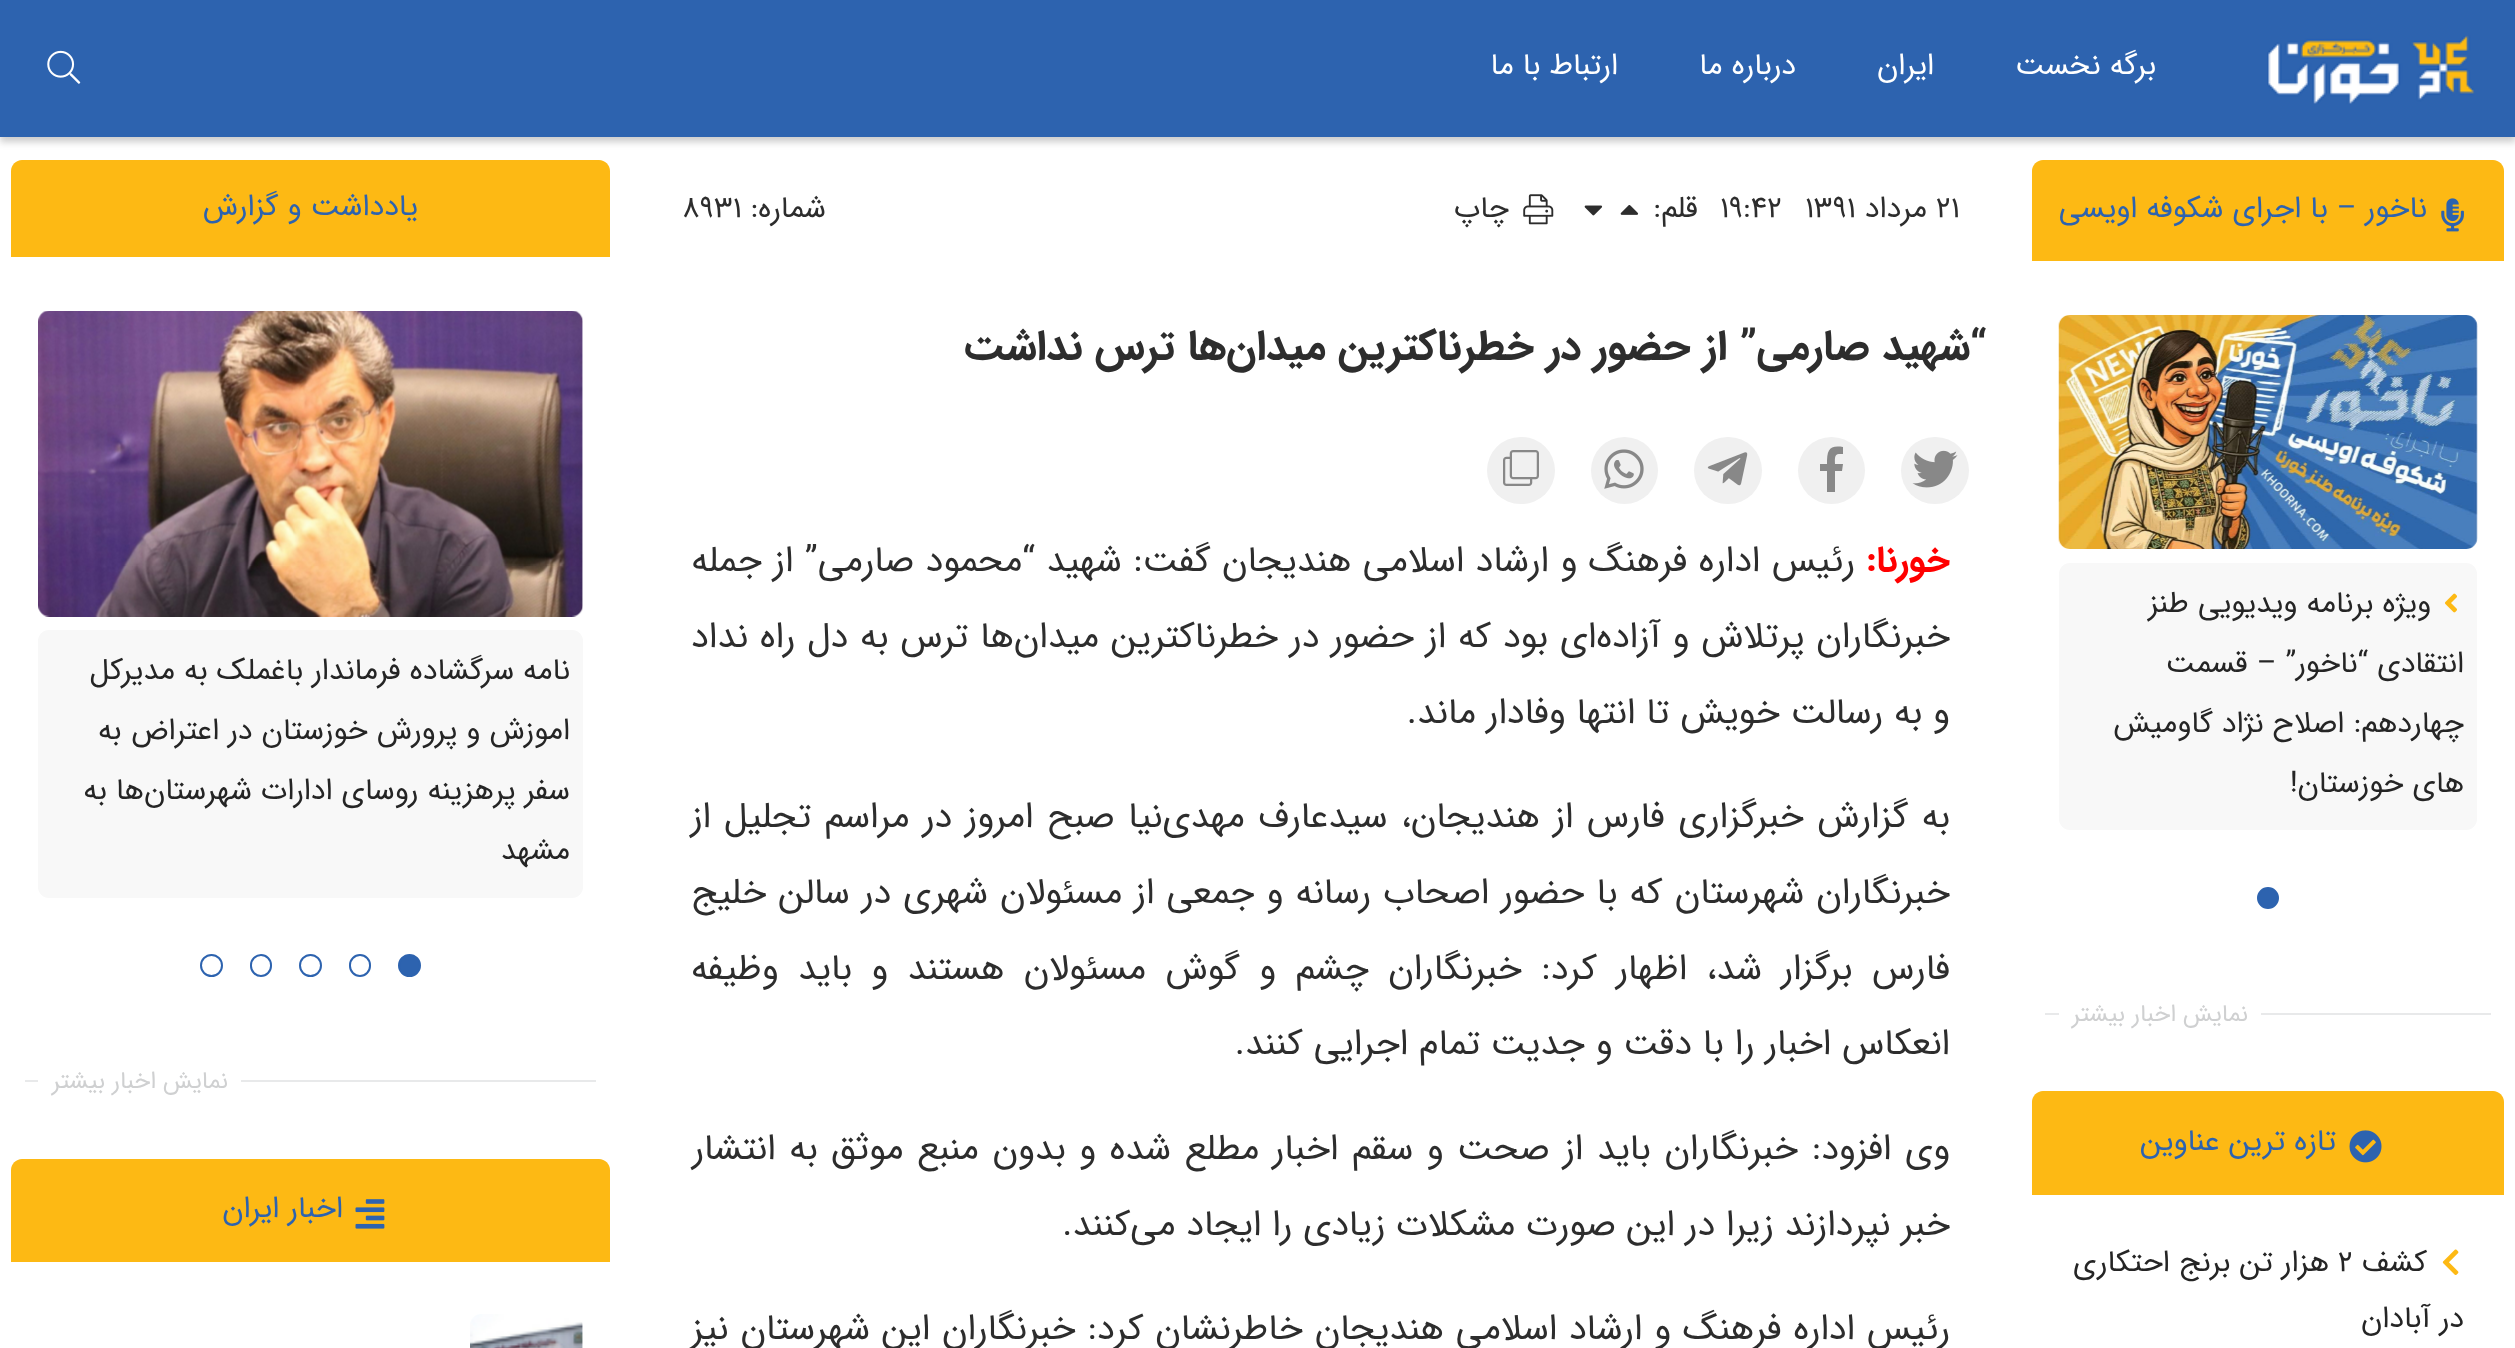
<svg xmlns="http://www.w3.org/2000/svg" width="2515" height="1348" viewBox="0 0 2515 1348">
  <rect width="100%" height="100%" fill="#fff"/>
  <path d="M0 5h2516v137H0z" fill="#00000033" filter="blur(3.5px)"/>
  <path d="M0 0h2515v137H0z" fill="#2d63af"/>
  <image x="2267" y="35" width="208" height="69" href="img/1.png"/>
  <image x="47" y="50" width="34" height="34" href="img/2.png"/>
  <path d="M2043 160H2493C2499 160 2504 165 2504 171V268H2032V171C2032 165 2037 160 2043 160Z" fill="#fdb914"/>
  <path d="M2032 261h472v7H2032z" fill="#fff"/>
  <image x="2441" y="198" width="23" height="34" href="img/3.png"/>
  <image x="2058" y="315" width="420" height="234" href="img/4.png"/>
  <rect x="2059" y="563" width="418" height="267" rx="11" fill="#f8f8f8"/>
  <image x="2445" y="593" width="12" height="20" href="img/5.png"/>
  <circle cx="2268" cy="898" r="10" fill="#2d63af" stroke="#2d63af" stroke-width="2"/>
  <path d="M2045 1013h446v2H2045z" fill="#e8e9ea"/>
  <path d="M2059 1013h202v2H2059z" fill="#fff"/>
  <path d="M2043 1091H2493C2499 1091 2504 1096 2504 1102V1202H2032V1102C2032 1096 2037 1091 2043 1091Z" fill="#fdb914"/>
  <path d="M2032 1195h472v7H2032z" fill="#fff"/>
  <image x="2349" y="1130" width="33" height="33" href="img/6.png"/>
  <image x="2442" y="1249" width="17" height="26" href="img/7.png"/>
  <image x="1620" y="205" width="19" height="10" href="img/8.png"/>
  <image x="1584" y="205" width="19" height="11" href="img/9.png"/>
  <image x="1523" y="194" width="31" height="31" href="img/10.png"/>
  <rect x="1901" y="437" width="68" height="67" rx="33.5" fill="#f0f0f0"/>
  <image x="1912" y="450" width="46" height="38" href="img/11.png"/>
  <circle cx="1831.5" cy="470.5" r="33.5" fill="#f0f0f0"/>
  <path d="M1839 454C1834 454 1835 460 1835 464H1843L1842 471H1835V492H1827V471H1820V464H1827C1827 450 1829 445 1843 447V454Z" fill="#888"/>
  <rect x="1694" y="437" width="68" height="67" rx="33.5" fill="#f0f0f0"/>
  <image x="1707" y="452" width="41" height="34" href="img/12.png"/>
  <circle cx="1624.5" cy="470.5" r="33.5" fill="#f0f0f0"/>
  <image x="1604" y="449" width="40" height="40" href="img/13.png"/>
  <rect x="1487" y="437" width="68" height="67" rx="33.5" fill="#f0f0f0"/>
  <image x="1503" y="450" width="36" height="36" href="img/14.png"/>
  <path d="M22 160H599C605 160 610 165 610 171V263H11V171C11 165 16 160 22 160Z" fill="#fdb914"/>
  <path d="M11 257h599v6H11z" fill="#fff"/>
  <image x="38" y="311" width="545" height="306" href="img/15.png"/>
  <rect x="38" y="630" width="545" height="268" rx="11" fill="#f8f8f8"/>
  <circle cx="409.5" cy="965.5" r="10.5" fill="#2d63af" stroke="#2d63af" stroke-width="2"/>
  <rect x="350" y="955" width="20" height="21" rx="10" fill="none" stroke="#2d63af" stroke-width="2"/>
  <circle cx="310.5" cy="965.5" r="10.5" fill="none" stroke="#2d63af" stroke-width="2"/>
  <rect x="251" y="955" width="20" height="21" rx="10" fill="none" stroke="#2d63af" stroke-width="2"/>
  <circle cx="211.5" cy="965.5" r="10.5" fill="none" stroke="#2d63af" stroke-width="2"/>
  <path d="M25 1080h571v2H25z" fill="#e8e9ea"/>
  <path d="M38 1080h203v2H38z" fill="#fff"/>
  <path d="M22 1159H599C605 1159 610 1164 610 1170V1269H11V1170C11 1164 16 1159 22 1159Z" fill="#fdb914"/>
  <path d="M11 1262h599v7H11z" fill="#fff"/>
  <image x="355" y="1199" width="30" height="30" href="img/16.png"/>
  <image x="470" y="1314" width="113" height="34" href="img/17.png"/>
  <g font-family="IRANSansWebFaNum" font-size="30" direction="rtl" fill="#fff">
    <text x="2156" y="74">برگه نخست</text>
    <text x="1934" y="74">ایران</text>
    <text x="1796" y="74">درباره ما</text>
    <text x="1618" y="74">ارتباط با ما</text>
  </g>
  <text x="2427" y="217" font-family="IRANSansWebFaNum" font-size="30" direction="rtl" fill="#2d63af">ناخور – با اجرای شکوفه اویسی</text>
  <g font-family="IRANSansWebFaNum" font-size="30" direction="rtl" fill="#252525">
    <text x="2431" y="612">ویژه برنامه ویدیویی طنز</text>
    <text x="2464" y="672">انتقادی “ناخور” – قسمت</text>
    <text x="2464" y="732">چهاردهم: اصلاح نژاد گاومیش</text>
    <text x="2464" y="792">های خوزستان!</text>
  </g>
  <g font-family="IRANSansWebFaNum" font-size="24" direction="rtl" fill="#cfd0d1">
    <text x="2248" y="1021">نمایش</text>
    <text x="2176" y="1021">اخبار بیشتر</text>
  </g>
  <text x="2336" y="1150" font-family="IRANSansWebFaNum" font-size="30" direction="rtl" fill="#2d63af">تازه ترین عناوین</text>
  <text x="2427" y="1271" font-family="IRANSansWebFaNum" font-size="30" direction="rtl" fill="#252525">کشف</text>
  <text x="2338" y="1271" font-family="IRANSansWebFaNum" font-size="30" fill="#252525">۲</text>
  <g font-family="IRANSansWebFaNum" font-size="30" direction="rtl" fill="#252525">
    <text x="2329" y="1271">هزار تن برنج احتکاری</text>
    <text x="2464" y="1327">در آبادان</text>
  </g>
  <text x="1936" y="217" font-family="IRANSansWebFaNum" font-size="30" fill="#2d2d2d">21</text>
  <text x="1927" y="217" font-family="IRANSansWebFaNum" font-size="30" direction="rtl" fill="#2d2d2d">مرداد</text>
  <g font-family="IRANSansWebFaNum" font-size="30" fill="#2d2d2d">
    <text x="1805" y="217">1391</text>
    <text x="1720" y="217">19:42</text>
  </g>
  <g font-family="IRANSansWebFaNum" font-size="30" direction="rtl" fill="#2d2d2d">
    <text x="1698" y="217">قلم:</text>
    <text x="1509" y="217">چاپ</text>
    <text x="826" y="217">شماره:</text>
  </g>
  <text x="682" y="217" font-family="IRANSansWebFaNum" font-size="30" fill="#2d2d2d">۸۹۳۱</text>
  <text x="1987" y="359" font-family="IRANSansWebFaNum" font-size="42" font-weight="bold" direction="rtl" fill="#2d2d2d">“شهید صارمی” از حضور در خطرناکترین میدان‌ها ترس نداشت</text>
  <text x="1950" y="571" font-family="IRANSansWebFaNum" font-size="36" font-weight="bold" direction="rtl" fill="#f00">خورنا:</text>
  <g font-family="IRANSansWebFaNum" font-size="36" direction="rtl" fill="#2d2d2d">
    <text x="1855" y="571" word-spacing="0.6">رئیس اداره فرهنگ و ارشاد اسلامی هندیجان گفت: شهید “محمود صارمی” از جمله</text>
    <text x="1950" y="647" word-spacing="1">خبرنگاران پرتلاش و آزاده‌ای بود که از حضور در خطرناکترین میدان‌ها ترس به دل راه نداد</text>
    <text x="1950" y="723">و به رسالت خویش تا انتها وفادار ماند.</text>
    <text x="1950" y="827" word-spacing="2.6">به گزارش خبرگزاری فارس از هندیجان، سیدعارف مهدی‌نیا صبح امروز در مراسم تجلیل از</text>
    <text x="1950" y="903" word-spacing="1.25">خبرنگاران شهرستان که با حضور اصحاب رسانه و جمعی از مسئولان شهری در سالن خلیج</text>
    <text x="1950" y="979" word-spacing="8.5">فارس برگزار شد، اظهار کرد: خبرنگاران چشم و گوش مسئولان هستند و باید وظیفه</text>
    <text x="1950" y="1054">انعکاس اخبار را با دقت و جدیت تمام اجرایی کنند.</text>
    <text x="1950" y="1159" word-spacing="2.75">وی افزود: خبرنگاران باید از صحت و سقم اخبار مطلع شده و بدون منبع موثق به انتشار</text>
    <text x="1950" y="1235">خبر نپردازند زیرا در این صورت مشکلات زیادی را ایجاد می‌کنند.</text>
    <text x="1950" y="1339" word-spacing="1">رئیس اداره فرهنگ و ارشاد اسلامی هندیجان خاطرنشان کرد: خبرنگاران این شهرستان نیز</text>
  </g>
  <text x="418" y="215" font-family="IRANSansWebFaNum" font-size="30" direction="rtl" fill="#2d63af">یادداشت و گزارش</text>
  <g font-family="IRANSansWebFaNum" font-size="30" direction="rtl" fill="#252525">
    <text x="570" y="679">نامه سرگشاده فرماندار باغملک به مدیرکل</text>
    <text x="570" y="739">اموزش و پرورش خوزستان در اعتراض به</text>
    <text x="570" y="799">سفر پرهزینه روسای ادارات شهرستان‌ها به</text>
    <text x="570" y="859">مشهد</text>
  </g>
  <g font-family="IRANSansWebFaNum" font-size="24" direction="rtl" fill="#cfd0d1">
    <text x="228" y="1088">نمایش</text>
    <text x="156" y="1088">اخبار بیشتر</text>
  </g>
  <text x="343" y="1217" font-family="IRANSansWebFaNum" font-size="30" direction="rtl" fill="#2d63af">اخبار ایران</text>
</svg>
